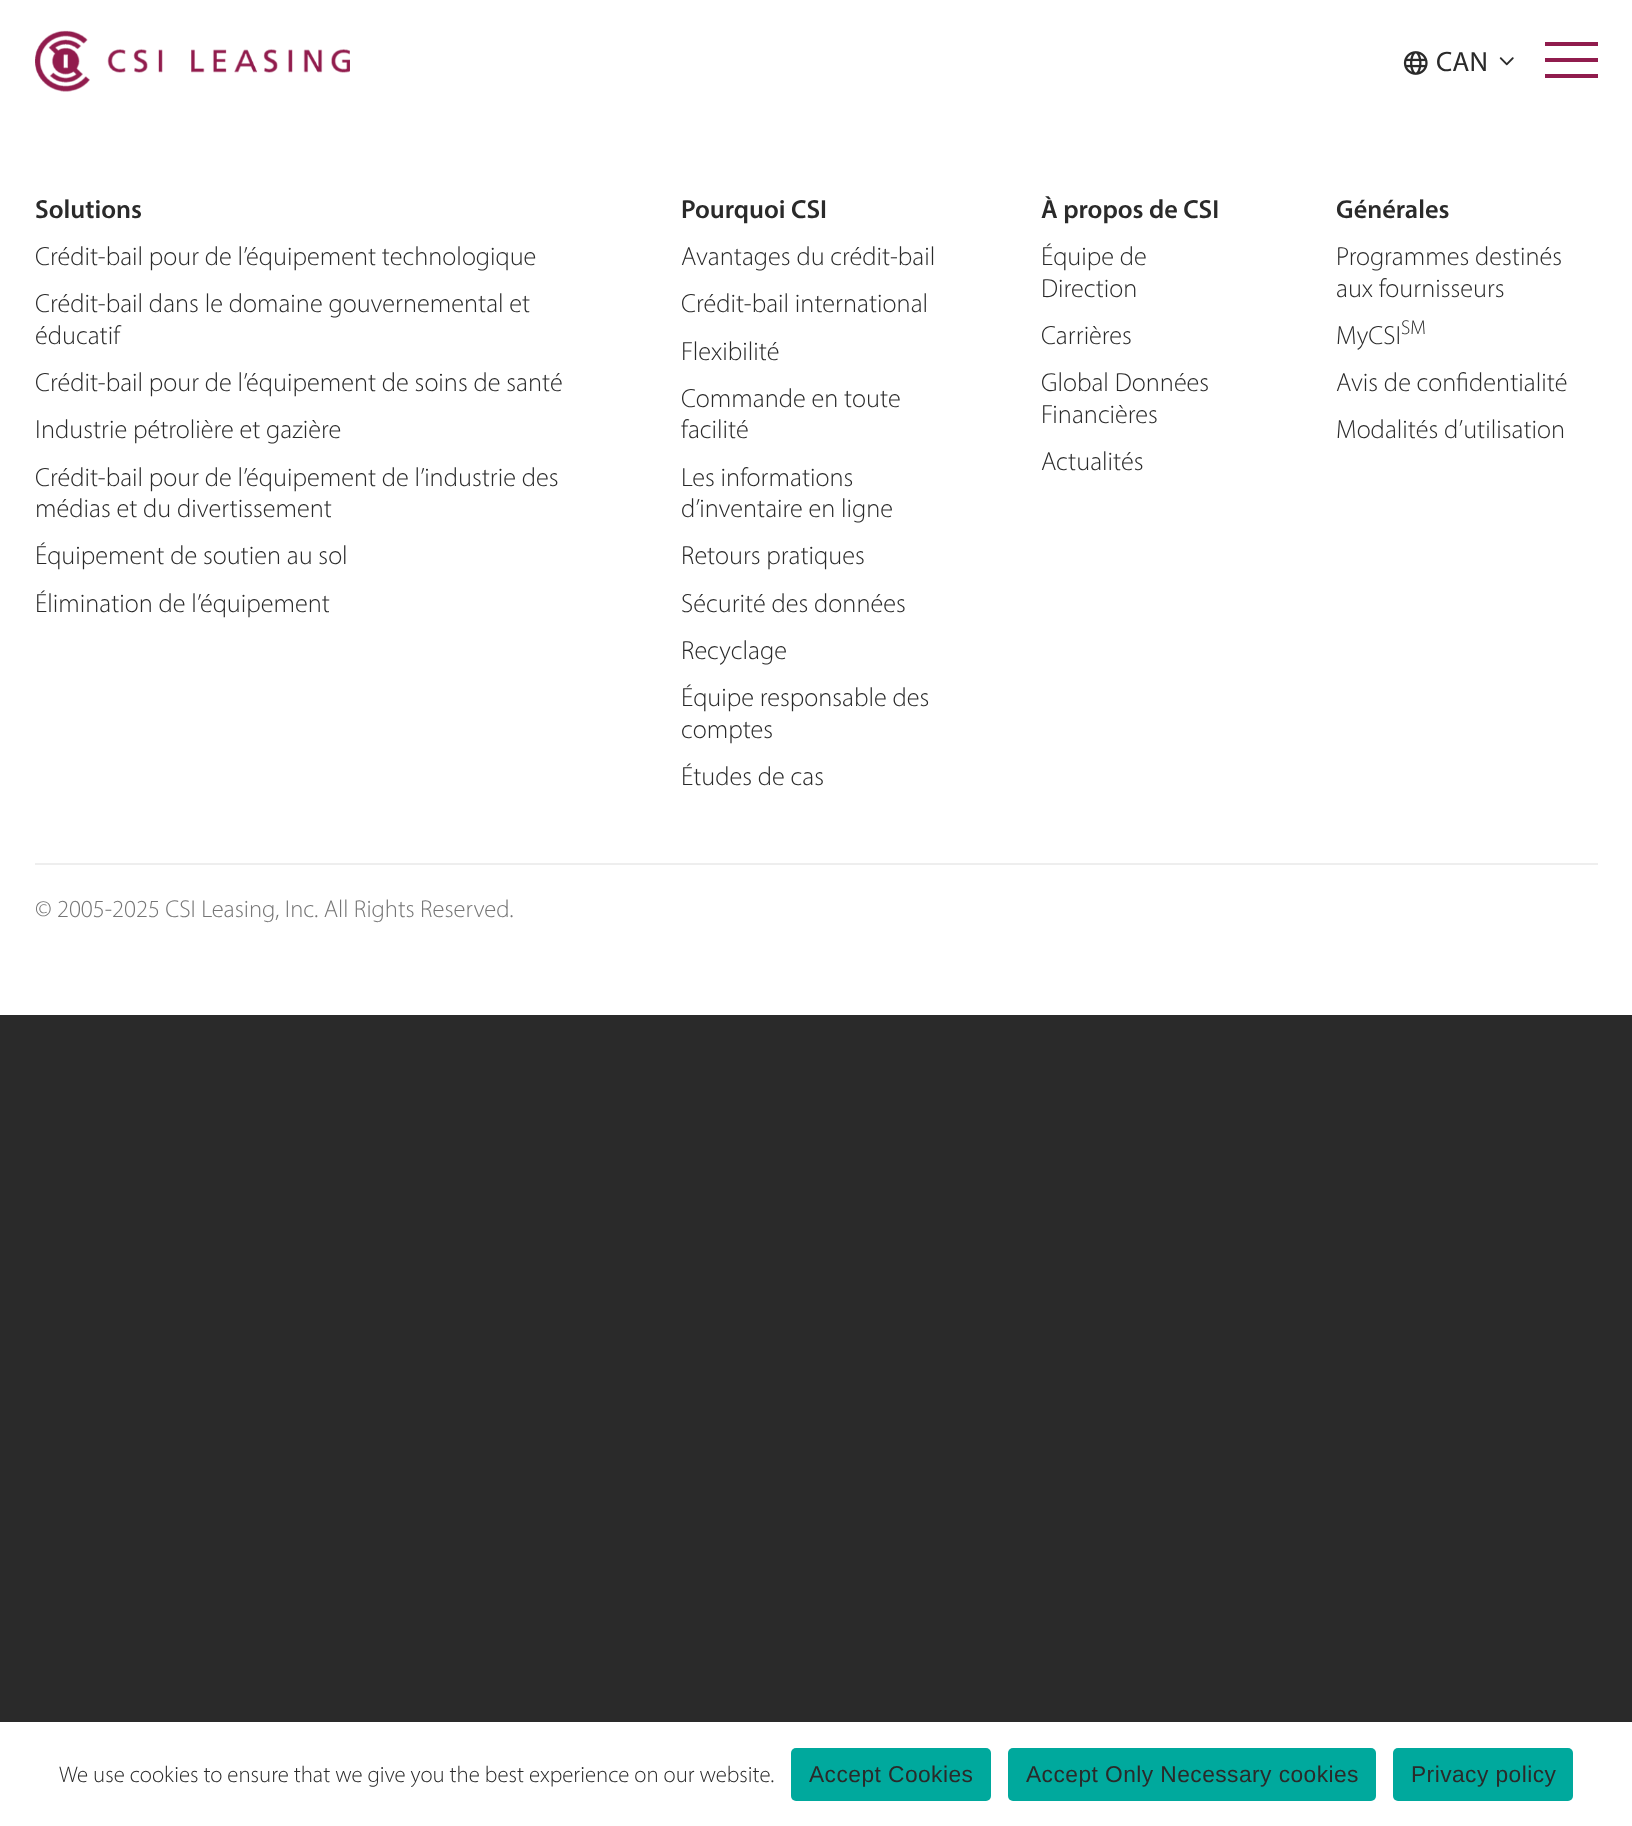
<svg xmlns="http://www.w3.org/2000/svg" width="1632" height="1826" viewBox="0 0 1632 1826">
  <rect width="100%" height="100%" fill="#2a2a2a"/>
  <path d="M0 0h1632v1015H0z" fill="#fff"/>
  <image x="35" y="30" width="315" height="62" href="img/1.png"/>
  <path d="M1545 42h53v4H1545z" fill="#901c4d"/>
  <path d="M1545 58h53v4H1545z" fill="#901c4d"/>
  <path d="M1545 74h53v4H1545z" fill="#901c4d"/>
  <image x="1403" y="51" width="25" height="24" href="img/2.png"/>
  <image x="1499" y="57" width="15" height="9" href="img/3.png"/>
  <path d="M35 863h1563v2H35z" fill="#eee"/>
  <path d="M0 1722h1632v104H0z" fill="#fff"/>
  <rect x="791" y="1748" width="200" height="53" rx="5" fill="#00a99d"/>
  <rect x="1008" y="1748" width="368" height="53" rx="5" fill="#00a99d"/>
  <rect x="1393" y="1748" width="180" height="53" rx="5" fill="#00a99d"/>
  <text x="1436" y="71" font-family="Myriad" font-size="28" fill="#2a2a2a">CAN</text>
  <text x="35" y="218" font-family="Myriad" font-size="26.25" font-weight="600" fill="#2a2a2a">Solutions</text>
  <g font-family="Myriad" font-size="26.25" font-weight="300" fill="#2a2a2a">
    <text x="35" y="265">Crédit-bail pour de l’équipement technologique</text>
    <text x="35" y="312">Crédit-bail dans le domaine gouvernemental et</text>
    <text x="35" y="344">éducatif</text>
    <text x="35" y="391">Crédit-bail pour de l’équipement de soins de santé</text>
    <text x="35" y="438">Industrie pétrolière et gazière</text>
    <text x="35" y="486">Crédit-bail pour de l’équipement de l’industrie des</text>
    <text x="35" y="517">médias et du divertissement</text>
    <text x="35" y="564">Équipement de soutien au sol</text>
    <text x="35" y="612">Élimination de l’équipement</text>
  </g>
  <text x="681" y="218" font-family="Myriad" font-size="26.25" font-weight="600" fill="#2a2a2a">Pourquoi CSI</text>
  <g font-family="Myriad" font-size="26.25" font-weight="300" fill="#2a2a2a">
    <text x="681" y="265">Avantages du crédit-bail</text>
    <text x="681" y="312">Crédit-bail international</text>
    <text x="681" y="360">Flexibilité</text>
    <text x="681" y="407">Commande en toute</text>
    <text x="681" y="438">facilité</text>
    <text x="681" y="486">Les informations</text>
    <text x="681" y="517">d’inventaire en ligne</text>
    <text x="681" y="564">Retours pratiques</text>
    <text x="681" y="612">Sécurité des données</text>
    <text x="681" y="659">Recyclage</text>
    <text x="681" y="706">Équipe responsable des</text>
    <text x="681" y="738">comptes</text>
    <text x="681" y="785">Études de cas</text>
  </g>
  <text x="1041" y="218" font-family="Myriad" font-size="26.25" font-weight="600" fill="#2a2a2a">À propos de CSI</text>
  <g font-family="Myriad" font-size="26.25" font-weight="300" fill="#2a2a2a">
    <text x="1041" y="265">Équipe de</text>
    <text x="1041" y="297">Direction</text>
    <text x="1041" y="344">Carrières</text>
    <text x="1041" y="391">Global Données</text>
    <text x="1041" y="423">Financières</text>
    <text x="1041" y="470">Actualités</text>
  </g>
  <text x="1336" y="218" font-family="Myriad" font-size="26.25" font-weight="600" fill="#2a2a2a">Générales</text>
  <g font-family="Myriad" font-size="26.25" font-weight="300" fill="#2a2a2a">
    <text x="1336" y="265">Programmes destinés</text>
    <text x="1336" y="297">aux fournisseurs</text>
    <text x="1336" y="344">MyCSI</text>
  </g>
  <text x="1401" y="334" font-family="Myriad" font-size="20" font-weight="300" fill="#2a2a2a">SM</text>
  <g font-family="Myriad" font-size="26.25" font-weight="300" fill="#2a2a2a">
    <text x="1336" y="391">Avis de confidentialité</text>
    <text x="1336" y="438">Modalités d’utilisation</text>
  </g>
  <text x="35" y="917" font-family="Myriad" font-size="24.5" font-weight="300" fill="#757575">© 2005-2025 CSI Leasing, Inc. All Rights Reserved.</text>
  <text x="59" y="1782" font-family="Myriad" font-size="22.75" font-weight="300" fill="#2a2a2a">We use cookies to ensure that we give you the best experience on our website.</text>
  <g font-family="Liberation Sans" font-size="22.75" letter-spacing="0.45" fill="#2a2a2a">
    <text x="809" y="1782">Accept Cookies</text>
    <text x="1026" y="1782">Accept Only Necessary cookies</text>
    <text x="1411" y="1782">Privacy policy</text>
  </g>
</svg>
